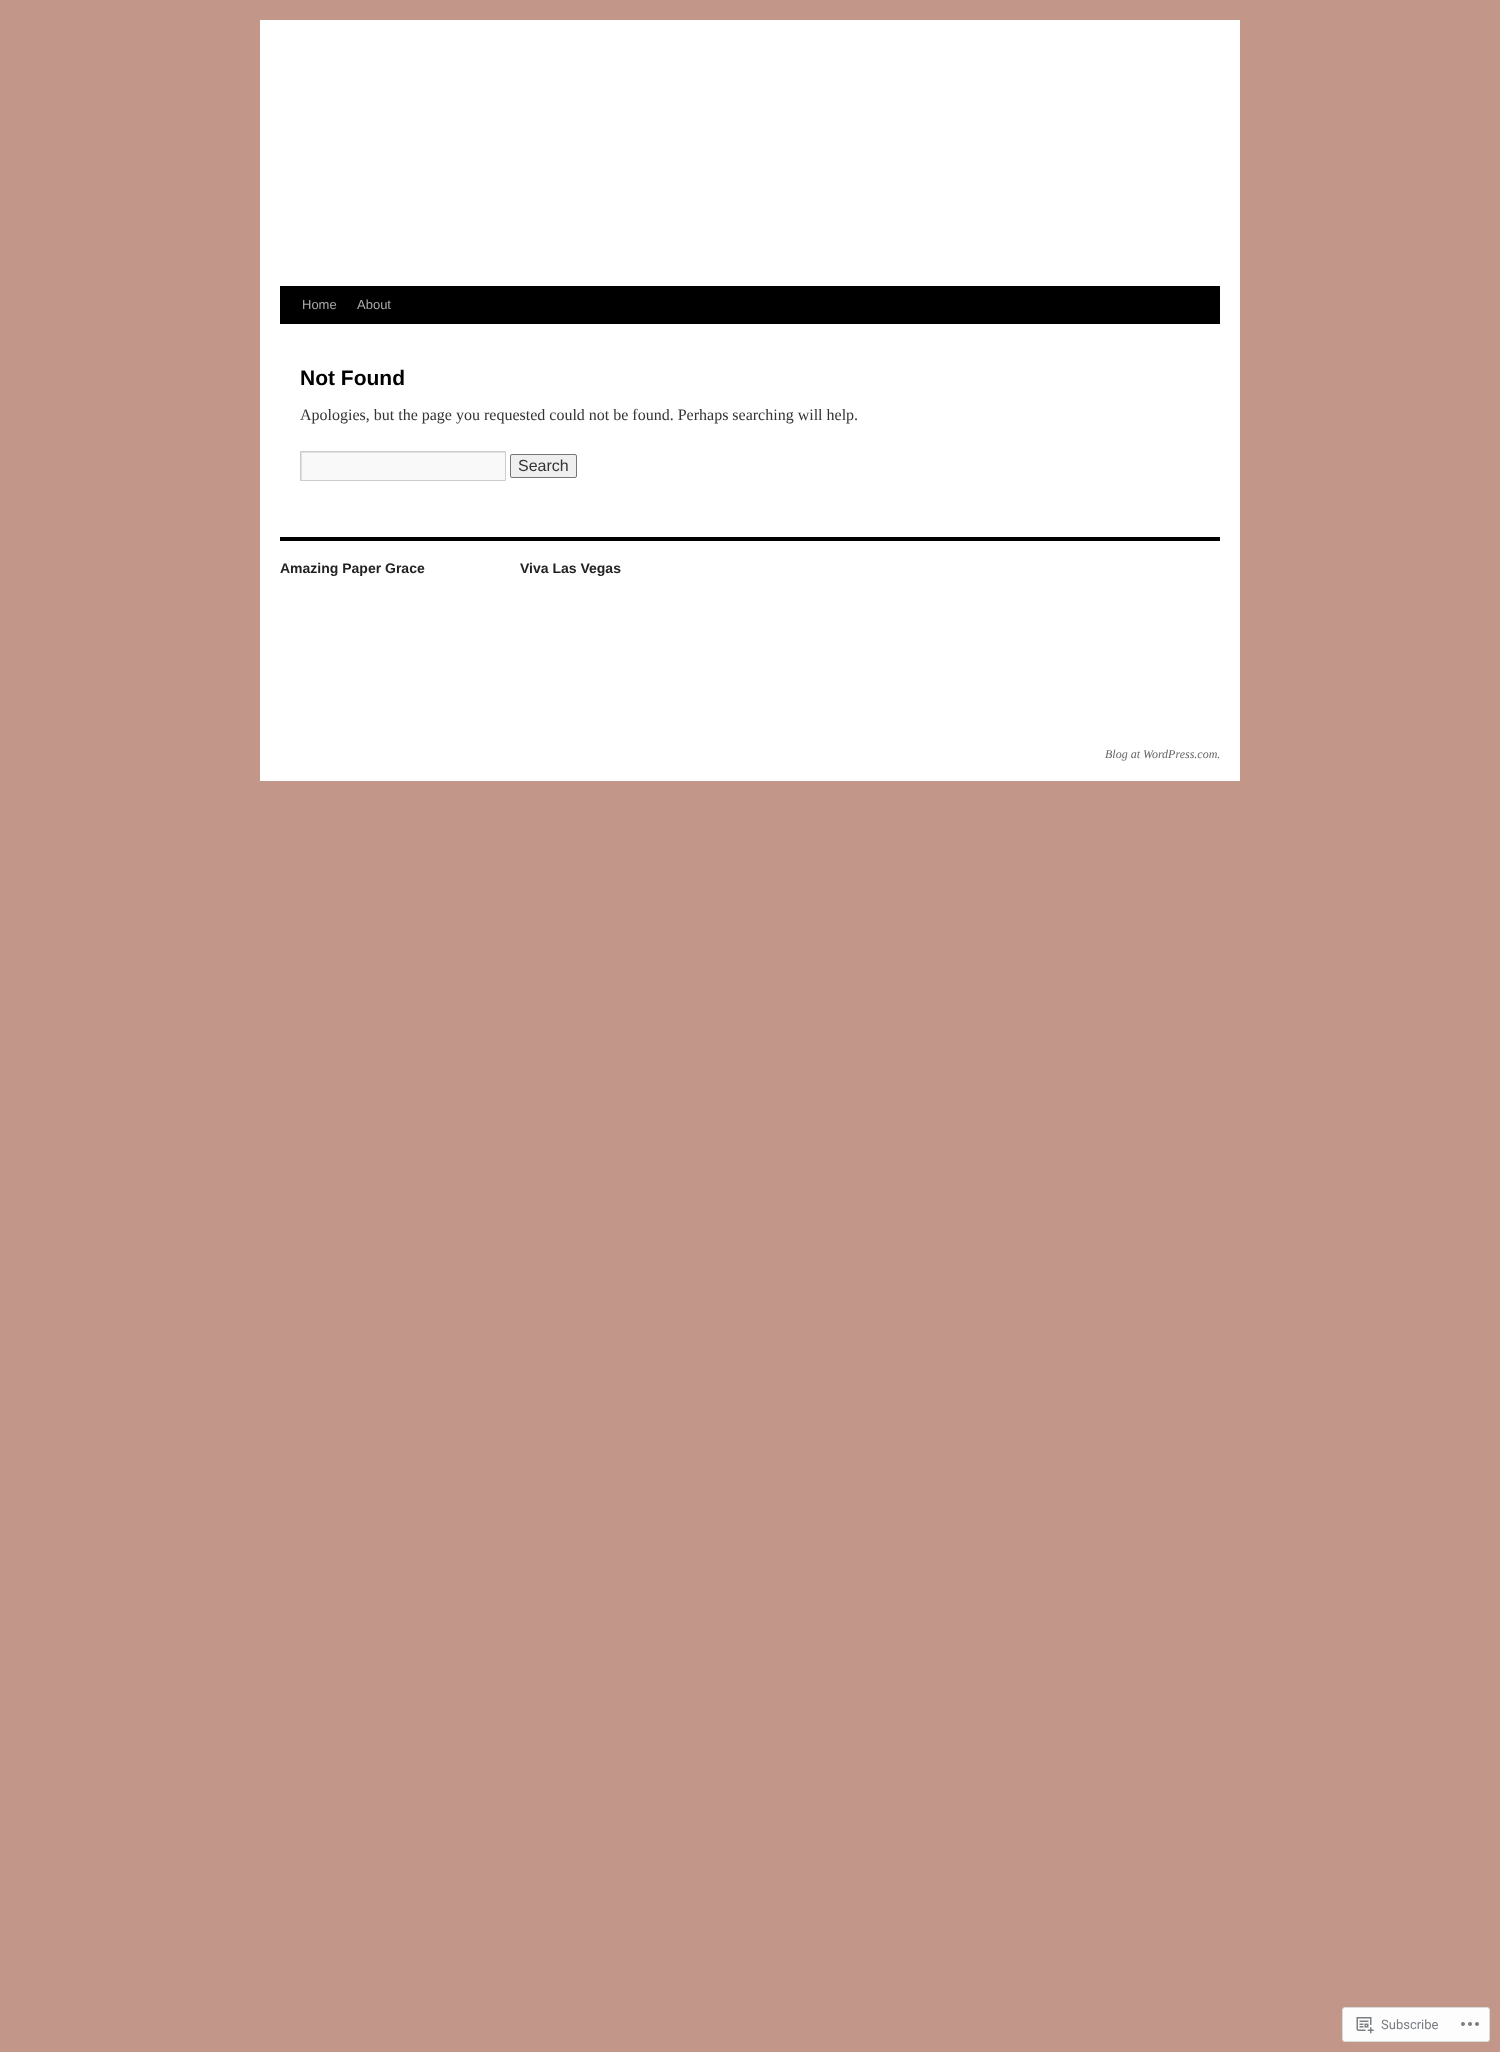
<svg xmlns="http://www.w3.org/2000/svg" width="1500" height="2052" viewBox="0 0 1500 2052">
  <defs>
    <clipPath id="clip1"><path d="M301 452h204v28H301z"/></clipPath>
  </defs>
  <rect width="100%" height="100%" fill="#c29789"/>
  <path d="M260 20h980v761H260z" fill="#fff"/>
  <path d="M280 286h940v38H280z" fill="#000"/>
  <path d="M302 453h203v27H302z" fill="#f9f9f9"/>
  <g clip-path="url(#clip1)">
    <path d="M202 353H604V579H202ZM302 453H506V481H302Z" fill="#e0e0e0" fill-rule="evenodd"/>
  </g>
  <path d="M300.5 451.5h205v29H300.5z" fill="none" stroke="#ccc"/>
  <rect x="510.5" y="454.5" width="66" height="23" rx="1.5" fill="#efefef" stroke="#767676"/>
  <path d="M280 537h940v4H280z" fill="#000"/>
  <rect x="1342.5" y="2007.5" width="147" height="34" rx="2.5" fill="#fefdfd" stroke="#dbdbdc"/>
  <image x="1356" y="2017" width="18" height="17" href="img/1.png"/>
  <image x="1461" y="2022" width="18" height="4" href="img/2.png"/>
  <g font-family="Liberation Sans" font-size="13" fill="#aaa">
    <text x="302" y="309">Home</text>
    <text x="357" y="309">About</text>
  </g>
  <text x="300" y="385" font-family="Liberation Sans" font-size="21" font-weight="bold" fill="#000">Not Found</text>
  <text x="300" y="420" font-family="Liberation Serif" font-size="16" fill="#333">Apologies, but the page you requested could not be found. Perhaps searching will help.</text>
  <text x="518" y="471" font-family="Liberation Sans" font-size="16" fill="#333">Search</text>
  <g font-family="Liberation Sans" font-size="14" font-weight="bold" fill="#222">
    <text x="280" y="573">Amazing Paper Grace</text>
    <text x="520" y="573">Viva Las Vegas</text>
  </g>
  <text x="1105" y="758" font-family="Liberation Serif" font-size="12" font-style="italic" fill="#666">Blog at WordPress.com.</text>
  <text x="1381" y="2029" font-family="Roboto" font-size="13" fill="#797d82">Subscribe</text>
</svg>
